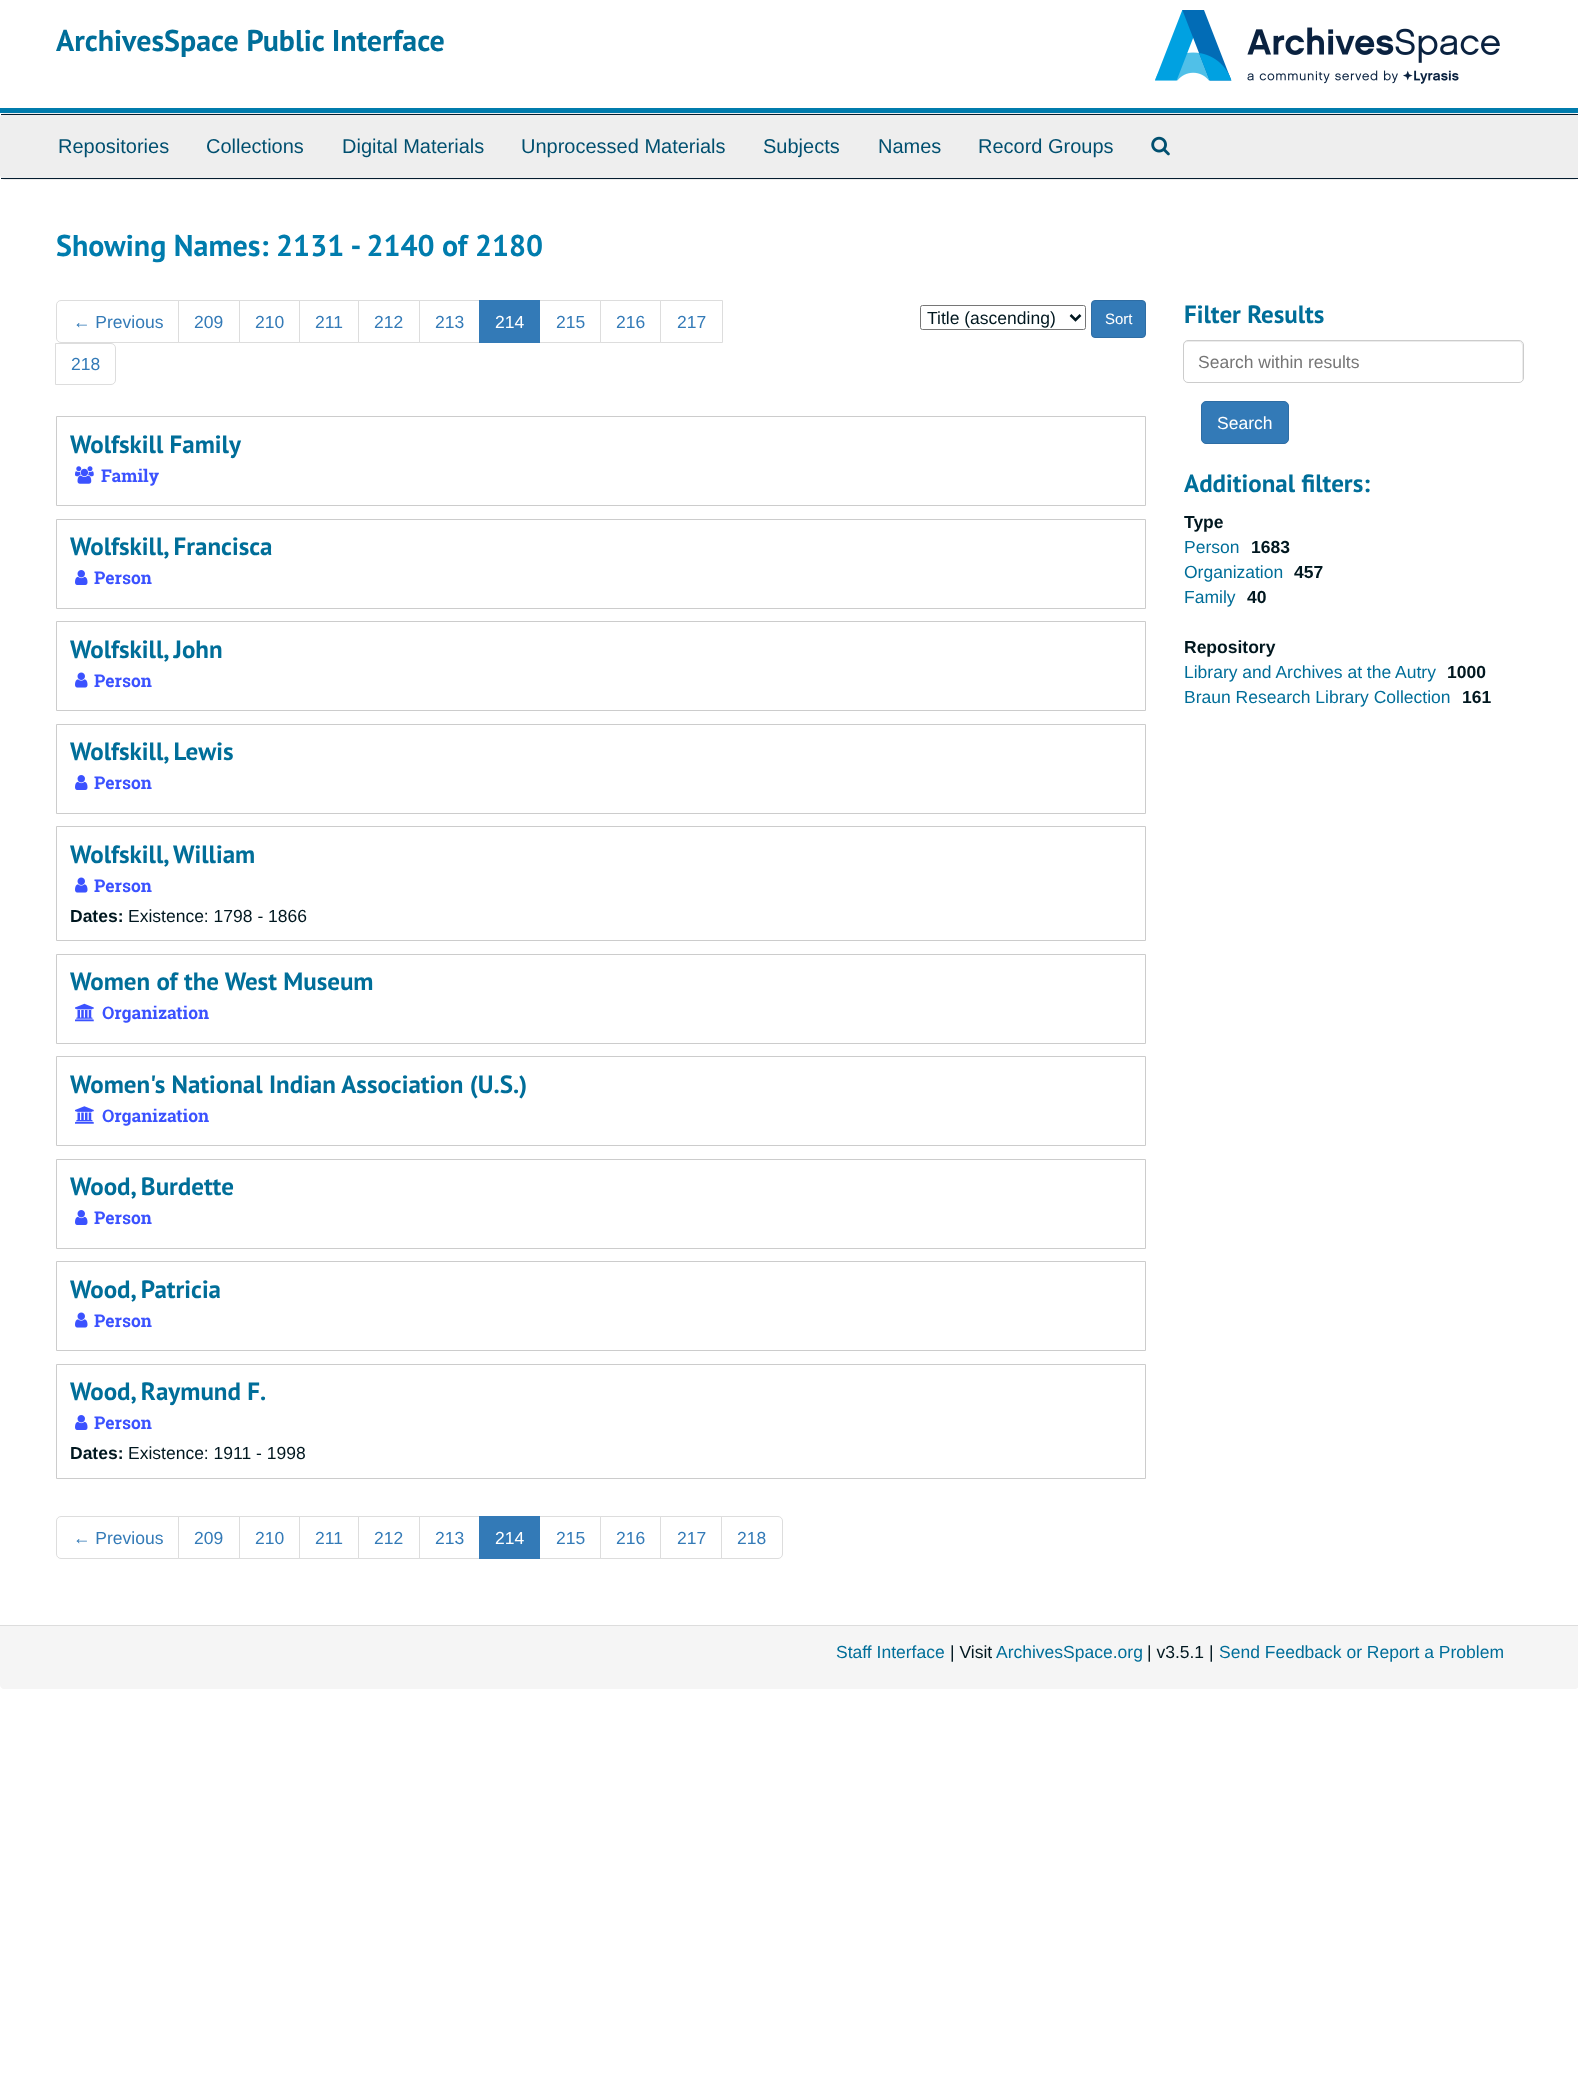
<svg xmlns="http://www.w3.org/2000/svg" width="1578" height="2074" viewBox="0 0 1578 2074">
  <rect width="100%" height="100%" fill="#fff"/>
  <path d="M0 108h1578v5H0z" fill="#007cad"/>
  <image x="1155" y="10" width="345" height="74" href="img/1.png"/>
  <rect x="0.5" y="113.5" width="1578" height="66" rx="4.5" fill="none" stroke="#eee"/>
  <path d="M1 115h1577v63H1z" fill="#eee"/>
  <path d="M1 114h1577v1H1z" fill="#041c2f"/>
  <path d="M1 178h1577v1H1z" fill="#041c2f"/>
  <image x="1151" y="136" width="19" height="20" href="img/2.png"/>
  <path d="M61 300.5H178.5V342.5H61C58.5 342.5 56.5 340.5 56.5 338V305C56.5 302.5 58.5 300.5 61 300.5Z" fill="none" stroke="#ddd"/>
  <path d="M178.5 300.5h61v42H178.5z" fill="none" stroke="#ddd"/>
  <path d="M239.5 300.5h60v42H239.5z" fill="none" stroke="#ddd"/>
  <path d="M299.5 300.5h59v42H299.5z" fill="none" stroke="#ddd"/>
  <path d="M358.5 300.5h61v42H358.5z" fill="none" stroke="#ddd"/>
  <path d="M419.5 300.5h60v42H419.5z" fill="none" stroke="#ddd"/>
  <path d="M539.5 300.5h61v42H539.5z" fill="none" stroke="#ddd"/>
  <path d="M479 300h61v43H479z" fill="#337ab7"/>
  <path d="M600.5 300.5h60v42H600.5z" fill="none" stroke="#ddd"/>
  <path d="M660.5 300.5h62v42H660.5z" fill="none" stroke="#ddd"/>
  <path d="M55.5 343.5H111C113.5 343.5 115.5 345.5 115.5 348V380C115.5 382.5 113.5 384.5 111 384.5H55.5Z" fill="none" stroke="#ddd"/>
  <rect x="920.5" y="305.5" width="165" height="24" rx="2" fill="none" stroke="#767676"/>
  <path d="M1070.5 315L1075.5 320L1080.5 315" fill="none" stroke="#00171f" stroke-width="2.5"/>
  <rect x="1091.5" y="300.5" width="54" height="37" rx="3.5" fill="#337ab7" stroke="#2e6da4"/>
  <path d="M56.5 416.5h1089v89H56.5z" fill="none" stroke="#ccc"/>
  <image x="75" y="466" width="19" height="18" href="img/3.png"/>
  <path d="M56.5 519.5h1089v89H56.5z" fill="none" stroke="#ccc"/>
  <image x="75" y="570" width="13" height="15" href="img/4.png"/>
  <path d="M56.5 621.5h1089v89H56.5z" fill="none" stroke="#ccc"/>
  <image x="75" y="672" width="13" height="16" href="img/5.png"/>
  <path d="M56.5 724.5h1089v89H56.5z" fill="none" stroke="#ccc"/>
  <image x="75" y="775" width="13" height="15" href="img/4.png"/>
  <path d="M56.5 826.5h1089v114H56.5z" fill="none" stroke="#ccc"/>
  <image x="75" y="877" width="13" height="16" href="img/5.png"/>
  <path d="M56.5 954.5h1089v89H56.5z" fill="none" stroke="#ccc"/>
  <image x="75" y="1003" width="19" height="19" href="img/6.png"/>
  <path d="M56.5 1056.5h1089v89H56.5z" fill="none" stroke="#ccc"/>
  <image x="75" y="1106" width="19" height="18" href="img/7.png"/>
  <path d="M56.5 1159.5h1089v89H56.5z" fill="none" stroke="#ccc"/>
  <image x="75" y="1210" width="13" height="15" href="img/4.png"/>
  <path d="M56.5 1261.5h1089v89H56.5z" fill="none" stroke="#ccc"/>
  <image x="75" y="1312" width="13" height="16" href="img/5.png"/>
  <path d="M56.5 1364.5h1089v114H56.5z" fill="none" stroke="#ccc"/>
  <image x="75" y="1415" width="13" height="15" href="img/4.png"/>
  <path d="M61 1516.5H178.5V1558.5H61C58.5 1558.5 56.5 1556.5 56.5 1554V1521C56.5 1518.5 58.5 1516.5 61 1516.5Z" fill="none" stroke="#ddd"/>
  <path d="M178.5 1516.5h61v42H178.5z" fill="none" stroke="#ddd"/>
  <path d="M239.5 1516.5h60v42H239.5z" fill="none" stroke="#ddd"/>
  <path d="M299.5 1516.5h59v42H299.5z" fill="none" stroke="#ddd"/>
  <path d="M358.5 1516.5h61v42H358.5z" fill="none" stroke="#ddd"/>
  <path d="M419.5 1516.5h60v42H419.5z" fill="none" stroke="#ddd"/>
  <path d="M539.5 1516.5h61v42H539.5z" fill="none" stroke="#ddd"/>
  <path d="M479 1516h61v43H479z" fill="#337ab7"/>
  <path d="M600.5 1516.5h60v42H600.5z" fill="none" stroke="#ddd"/>
  <path d="M660.5 1516.5h62v42H660.5z" fill="none" stroke="#ddd"/>
  <path d="M721.5 1516.5H778C780.5 1516.5 782.5 1518.5 782.5 1521V1554C782.5 1556.5 780.5 1558.5 778 1558.5H721.5Z" fill="#fff" stroke="#ddd"/>
  <path d="M1188 342H1519C1521 342 1522 344 1522 346V380C1523 379 1523 378 1523 377V345C1523 343 1521 341 1519 341H1188C1186 341 1184 343 1184 345V346C1184 344 1185 342 1188 342Z" fill="#ececec"/>
  <rect x="1183.5" y="340.5" width="340" height="42" rx="4.5" fill="none" stroke="#ccc"/>
  <rect x="1201.5" y="401.5" width="87" height="42" rx="4.5" fill="#337ab7" stroke="#2e6da4"/>
  <path d="M0 1625H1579V1685C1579 1687 1577 1689 1575 1689H4C2 1689 0 1687 0 1685Z" fill="#f5f5f5"/>
  <path d="M0 1625h1578v1H0z" fill="#ddd"/>
  <text x="56" y="51" font-family="PT Sans" font-size="30" font-weight="bold" fill="#006e99">ArchivesSpace Public Interface</text>
  <g font-family="Liberation Sans" font-size="20" fill="#004f6f">
    <text x="58" y="153">Repositories</text>
    <text x="206" y="153">Collections</text>
    <text x="342" y="153">Digital Materials</text>
    <text x="521" y="153">Unprocessed Materials</text>
    <text x="763" y="153">Subjects</text>
    <text x="878" y="153">Names</text>
    <text x="978" y="153">Record Groups</text>
  </g>
  <text x="56" y="256" font-family="PT Sans" font-size="30" font-weight="bold" fill="#007cad">Showing Names: 2131 - 2140 of 2180</text>
  <g font-family="Liberation Sans" font-size="17.5" fill="#337ab7">
    <text x="73" y="328">← Previous</text>
    <text x="194" y="328">209</text>
    <text x="255" y="328">210</text>
    <text x="315" y="328">211</text>
    <text x="374" y="328">212</text>
    <text x="435" y="328">213</text>
  </g>
  <text x="495" y="328" font-family="Liberation Sans" font-size="17.5" fill="#fff">214</text>
  <g font-family="Liberation Sans" font-size="17.5" fill="#337ab7">
    <text x="556" y="328">215</text>
    <text x="616" y="328">216</text>
    <text x="677" y="328">217</text>
    <text x="71" y="370">218</text>
  </g>
  <text x="927" y="324" font-family="Liberation Sans" font-size="17.5" fill="#00171f">Title (ascending)</text>
  <text x="1105" y="324" font-family="Liberation Sans" font-size="15" fill="#fff">Sort</text>
  <text x="70" y="453" font-family="PT Sans" font-size="25" font-weight="bold" fill="#006e99">Wolfskill Family</text>
  <text x="101" y="482" font-family="Roboto Slab" font-size="17.5" font-weight="bold" fill="#3b52ff">Family</text>
  <text x="70" y="555" font-family="PT Sans" font-size="25" font-weight="bold" fill="#006e99">Wolfskill, Francisca</text>
  <text x="94" y="584" font-family="Roboto Slab" font-size="17.5" font-weight="bold" fill="#3b52ff">Person</text>
  <text x="70" y="658" font-family="PT Sans" font-size="25" font-weight="bold" fill="#006e99">Wolfskill, John</text>
  <text x="94" y="687" font-family="Roboto Slab" font-size="17.5" font-weight="bold" fill="#3b52ff">Person</text>
  <text x="70" y="760" font-family="PT Sans" font-size="25" font-weight="bold" fill="#006e99">Wolfskill, Lewis</text>
  <text x="94" y="789" font-family="Roboto Slab" font-size="17.5" font-weight="bold" fill="#3b52ff">Person</text>
  <text x="70" y="863" font-family="PT Sans" font-size="25" font-weight="bold" fill="#006e99">Wolfskill, William</text>
  <text x="94" y="892" font-family="Roboto Slab" font-size="17.5" font-weight="bold" fill="#3b52ff">Person</text>
  <text x="70" y="922" font-family="Liberation Sans" font-size="17.5" font-weight="bold" fill="#00171f">Dates:</text>
  <text x="128" y="922" font-family="Liberation Sans" font-size="17.5" fill="#00171f">Existence: 1798 - 1866</text>
  <text x="70" y="990" font-family="PT Sans" font-size="25" font-weight="bold" fill="#006e99">Women of the West Museum</text>
  <text x="102" y="1019" font-family="Roboto Slab" font-size="17.5" font-weight="bold" fill="#3b52ff">Organization</text>
  <text x="70" y="1093" font-family="PT Sans" font-size="25" font-weight="bold" fill="#006e99">Women's National Indian Association (U.S.)</text>
  <text x="102" y="1122" font-family="Roboto Slab" font-size="17.5" font-weight="bold" fill="#3b52ff">Organization</text>
  <text x="70" y="1195" font-family="PT Sans" font-size="25" font-weight="bold" fill="#006e99">Wood, Burdette</text>
  <text x="94" y="1224" font-family="Roboto Slab" font-size="17.5" font-weight="bold" fill="#3b52ff">Person</text>
  <text x="70" y="1298" font-family="PT Sans" font-size="25" font-weight="bold" fill="#006e99">Wood, Patricia</text>
  <text x="94" y="1327" font-family="Roboto Slab" font-size="17.5" font-weight="bold" fill="#3b52ff">Person</text>
  <text x="70" y="1400" font-family="PT Sans" font-size="25" font-weight="bold" fill="#006e99">Wood, Raymund F.</text>
  <text x="94" y="1429" font-family="Roboto Slab" font-size="17.5" font-weight="bold" fill="#3b52ff">Person</text>
  <text x="70" y="1459" font-family="Liberation Sans" font-size="17.5" font-weight="bold" fill="#00171f">Dates:</text>
  <text x="128" y="1459" font-family="Liberation Sans" font-size="17.5" fill="#00171f">Existence: 1911 - 1998</text>
  <g font-family="Liberation Sans" font-size="17.5" fill="#337ab7">
    <text x="73" y="1544">← Previous</text>
    <text x="194" y="1544">209</text>
    <text x="255" y="1544">210</text>
    <text x="315" y="1544">211</text>
    <text x="374" y="1544">212</text>
    <text x="435" y="1544">213</text>
  </g>
  <text x="495" y="1544" font-family="Liberation Sans" font-size="17.5" fill="#fff">214</text>
  <g font-family="Liberation Sans" font-size="17.5" fill="#337ab7">
    <text x="556" y="1544">215</text>
    <text x="616" y="1544">216</text>
    <text x="677" y="1544">217</text>
    <text x="737" y="1544">218</text>
  </g>
  <text x="1184" y="323" font-family="PT Sans" font-size="25" font-weight="bold" fill="#006e99">Filter Results</text>
  <text x="1198" y="368" font-family="Liberation Sans" font-size="17.5" fill="#767676">Search within results</text>
  <text x="1217" y="429" font-family="Liberation Sans" font-size="17.5" fill="#fff">Search</text>
  <text x="1184" y="492" font-family="PT Sans" font-size="25" font-weight="bold" fill="#006e99">Additional filters:</text>
  <text x="1184" y="528" font-family="Liberation Sans" font-size="17.5" font-weight="bold" fill="#00171f">Type</text>
  <text x="1184" y="553" font-family="Liberation Sans" font-size="17.5" fill="#006e99">Person</text>
  <text x="1251" y="553" font-family="Liberation Sans" font-size="17.5" font-weight="bold" fill="#00171f">1683</text>
  <text x="1184" y="578" font-family="Liberation Sans" font-size="17.5" fill="#006e99">Organization</text>
  <text x="1294" y="578" font-family="Liberation Sans" font-size="17.5" font-weight="bold" fill="#00171f">457</text>
  <text x="1184" y="603" font-family="Liberation Sans" font-size="17.5" fill="#006e99">Family</text>
  <g font-family="Liberation Sans" font-size="17.5" font-weight="bold" fill="#00171f">
    <text x="1247" y="603">40</text>
    <text x="1184" y="653">Repository</text>
  </g>
  <text x="1184" y="678" font-family="Liberation Sans" font-size="17.5" fill="#006e99">Library and Archives at the Autry</text>
  <text x="1447" y="678" font-family="Liberation Sans" font-size="17.5" font-weight="bold" fill="#00171f">1000</text>
  <text x="1184" y="703" font-family="Liberation Sans" font-size="17.5" fill="#006e99">Braun Research Library Collection</text>
  <text x="1462" y="703" font-family="Liberation Sans" font-size="17.5" font-weight="bold" fill="#00171f">161</text>
  <text x="836" y="1658" font-family="Liberation Sans" font-size="17.5" fill="#006e99">Staff Interface</text>
  <text x="950" y="1658" font-family="Liberation Sans" font-size="17.5" fill="#00171f">| Visit</text>
  <text x="996" y="1658" font-family="Liberation Sans" font-size="17.5" fill="#006e99">ArchivesSpace.org</text>
  <text x="1147" y="1658" font-family="Liberation Sans" font-size="17.5" fill="#00171f">| v3.5.1 |</text>
  <text x="1219" y="1658" font-family="Liberation Sans" font-size="17.5" fill="#006e99">Send Feedback or Report a Problem</text>
</svg>
